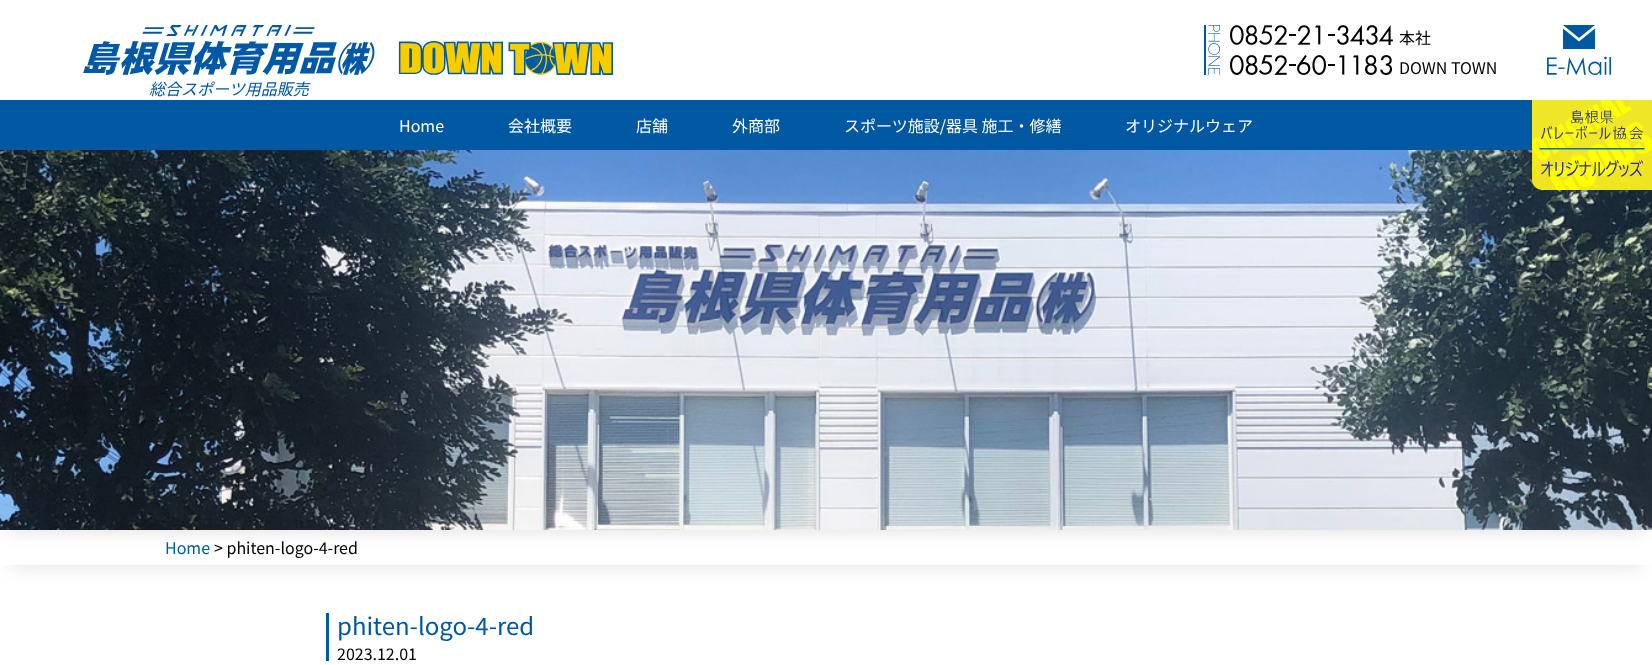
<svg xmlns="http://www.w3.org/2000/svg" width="1652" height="665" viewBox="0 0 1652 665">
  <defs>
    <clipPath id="clip1"><path d="M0 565h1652v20H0z"/></clipPath>
  </defs>
  <rect width="100%" height="100%" fill="#fff"/>
  <image x="83" y="25" width="530" height="50" href="img/1.png"/>
  <image x="1204" y="25" width="16" height="50" href="img/2.png"/>
  <image x="1230" y="25" width="163" height="20" href="img/3.png"/>
  <image x="1547" y="25" width="64" height="50" href="img/4.png"/>
  <image x="1230" y="55" width="162" height="20" href="img/5.png"/>
  <path d="M0 100h1652v50H0z" fill="#0058a2"/>
  <path d="M10 170h1632v360H10z" fill="#ddd" filter="blur(10px)"/>
  <g clip-path="url(#clip1)">
    <path d="M10 550h1632v15H10z" fill="#ddd" filter="blur(10px)"/>
  </g>
  <image x="0" y="150" width="1652" height="380" href="img/6.png"/>
  <image x="1532" y="100" width="120" height="90" href="img/7.png"/>
  <path d="M326 613h3v48H326z" fill="#0058a2"/>
  <g font-family="Noto Sans JP" font-size="16" font-weight="100" fill="#000">
    <text x="1399" y="44">本社</text>
    <text x="1399" y="74">DOWN TOWN</text>
  </g>
  <text x="149" y="95" font-family="Noto Sans JP" font-size="16" font-weight="100" font-style="italic" fill="#0058a2">総合スポーツ用品販売</text>
  <g font-family="Noto Sans JP" font-size="16" font-weight="100" fill="#fff">
    <text x="399" y="132">Home</text>
    <text x="508" y="132">会社概要</text>
    <text x="636" y="132">店舗</text>
    <text x="732" y="132">外商部</text>
    <text x="844" y="132">スポーツ施設/器具 施工・修繕</text>
    <text x="1125" y="132">オリジナルウェア</text>
  </g>
  <text x="165" y="554" font-family="Noto Sans JP" font-size="16" font-weight="100" fill="#005bac">Home</text>
  <text x="214" y="554" font-family="Noto Sans JP" font-size="16" font-weight="100" fill="#000">&gt; phiten-logo-4-red</text>
  <text x="337" y="635" font-family="Noto Sans JP" font-size="24" font-weight="100" fill="#0058a2">phiten-logo-4-red</text>
  <text x="337" y="660" font-family="Noto Sans JP" font-size="16" font-weight="100" fill="#000">2023.12.01</text>
</svg>
